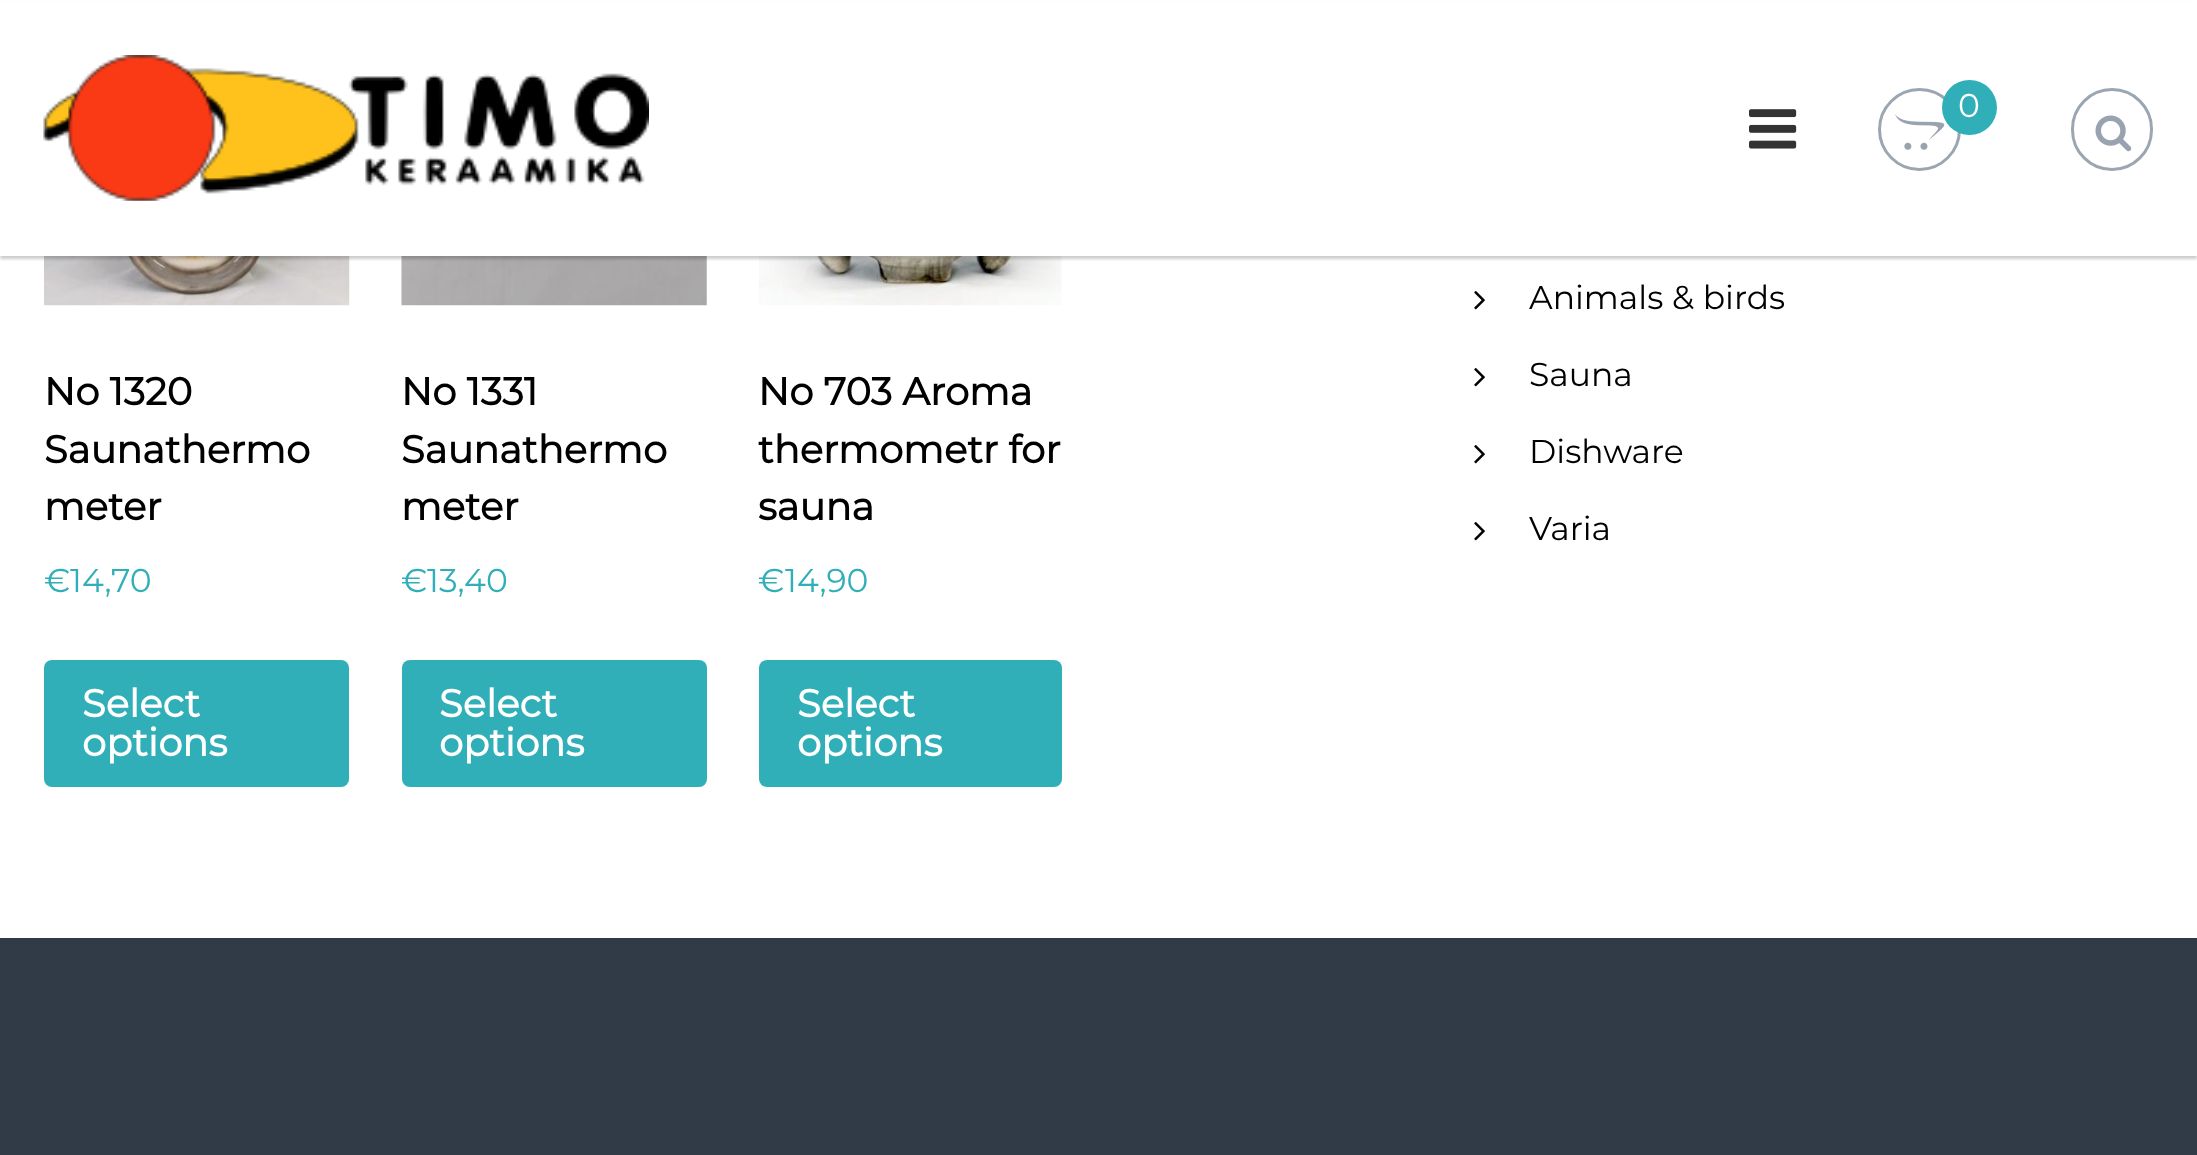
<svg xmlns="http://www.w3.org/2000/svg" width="2197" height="1155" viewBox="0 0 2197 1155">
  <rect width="100%" height="100%" fill="#fff"/>
  <image x="44" y="256" width="306" height="50" href="img/5.png"/>
  <image x="401" y="256" width="306" height="50" href="img/6.png"/>
  <image x="759" y="256" width="303" height="50" href="img/7.png"/>
  <path d="M0 3h2197v256H0z" fill="#00000033" filter="blur(1.5px)"/>
  <path d="M0 1h2197v255H0z" fill="#fff"/>
  <image x="43" y="55" width="606" height="146" href="img/1.png"/>
  <circle cx="1919.5" cy="129.5" r="40" fill="none" stroke="#9ca6b2" stroke-width="3"/>
  <image x="1895" y="114" width="50" height="36" href="img/2.png"/>
  <circle cx="1969.5" cy="107.5" r="27.5" fill="#30afb8"/>
  <rect x="2072.5" y="89.5" width="79" height="80" rx="39.5" fill="none" stroke="#9ca6b2" stroke-width="3"/>
  <image x="2095" y="115" width="37" height="37" href="img/3.png"/>
  <image x="1749" y="109" width="48" height="40" href="img/4.png"/>
  <rect x="44" y="660" width="305" height="127" rx="8" fill="#30afb8"/>
  <rect x="402" y="660" width="305" height="127" rx="8" fill="#30afb8"/>
  <rect x="759" y="660" width="303" height="127" rx="8" fill="#30afb8"/>
  <image x="1474" y="291" width="11" height="19" href="img/8.png"/>
  <image x="1474" y="368" width="11" height="19" href="img/8.png"/>
  <image x="1474" y="445" width="11" height="19" href="img/8.png"/>
  <image x="1474" y="522" width="11" height="19" href="img/8.png"/>
  <path d="M0 938h2197v217H0z" fill="#313b48"/>
  <text x="1958" y="117" font-family="Montserrat" font-size="33" font-weight="100" fill="#fff">0</text>
  <g font-family="Montserrat" font-size="38.5" font-weight="bold" fill="#000">
    <text x="44" y="405">No 1320</text>
    <text x="44" y="463">Saunathermo</text>
    <text x="44" y="520">meter</text>
  </g>
  <g font-family="Montserrat" font-size="33" font-weight="100" fill="#30afb8">
    <text x="44" y="592">€</text>
    <text x="70" y="592">14,70</text>
  </g>
  <g font-family="Montserrat" font-size="38.5" font-weight="bold" fill="#fff">
    <text x="82" y="717">Select</text>
    <text x="82" y="756">options</text>
  </g>
  <g font-family="Montserrat" font-size="38.5" font-weight="bold" fill="#000">
    <text x="401" y="405">No 1331</text>
    <text x="401" y="463">Saunathermo</text>
    <text x="401" y="520">meter</text>
  </g>
  <g font-family="Montserrat" font-size="33" font-weight="100" fill="#30afb8">
    <text x="401" y="592">€</text>
    <text x="427" y="592">13,40</text>
  </g>
  <g font-family="Montserrat" font-size="38.5" font-weight="bold" fill="#fff">
    <text x="439" y="717">Select</text>
    <text x="439" y="756">options</text>
  </g>
  <g font-family="Montserrat" font-size="38.5" font-weight="bold" fill="#000">
    <text x="758" y="405">No 703 Aroma</text>
    <text x="758" y="463">thermometr for</text>
    <text x="758" y="520">sauna</text>
  </g>
  <g font-family="Montserrat" font-size="33" font-weight="100" fill="#30afb8">
    <text x="758" y="592">€</text>
    <text x="785" y="592">14,90</text>
  </g>
  <g font-family="Montserrat" font-size="38.5" font-weight="bold" fill="#fff">
    <text x="797" y="717">Select</text>
    <text x="797" y="756">options</text>
  </g>
  <g font-family="Montserrat" font-size="33" font-weight="100" fill="#000">
    <text x="1529" y="309">Animals &amp; birds</text>
    <text x="1529" y="386">Sauna</text>
    <text x="1529" y="463">Dishware</text>
    <text x="1529" y="540">Varia</text>
  </g>
</svg>
